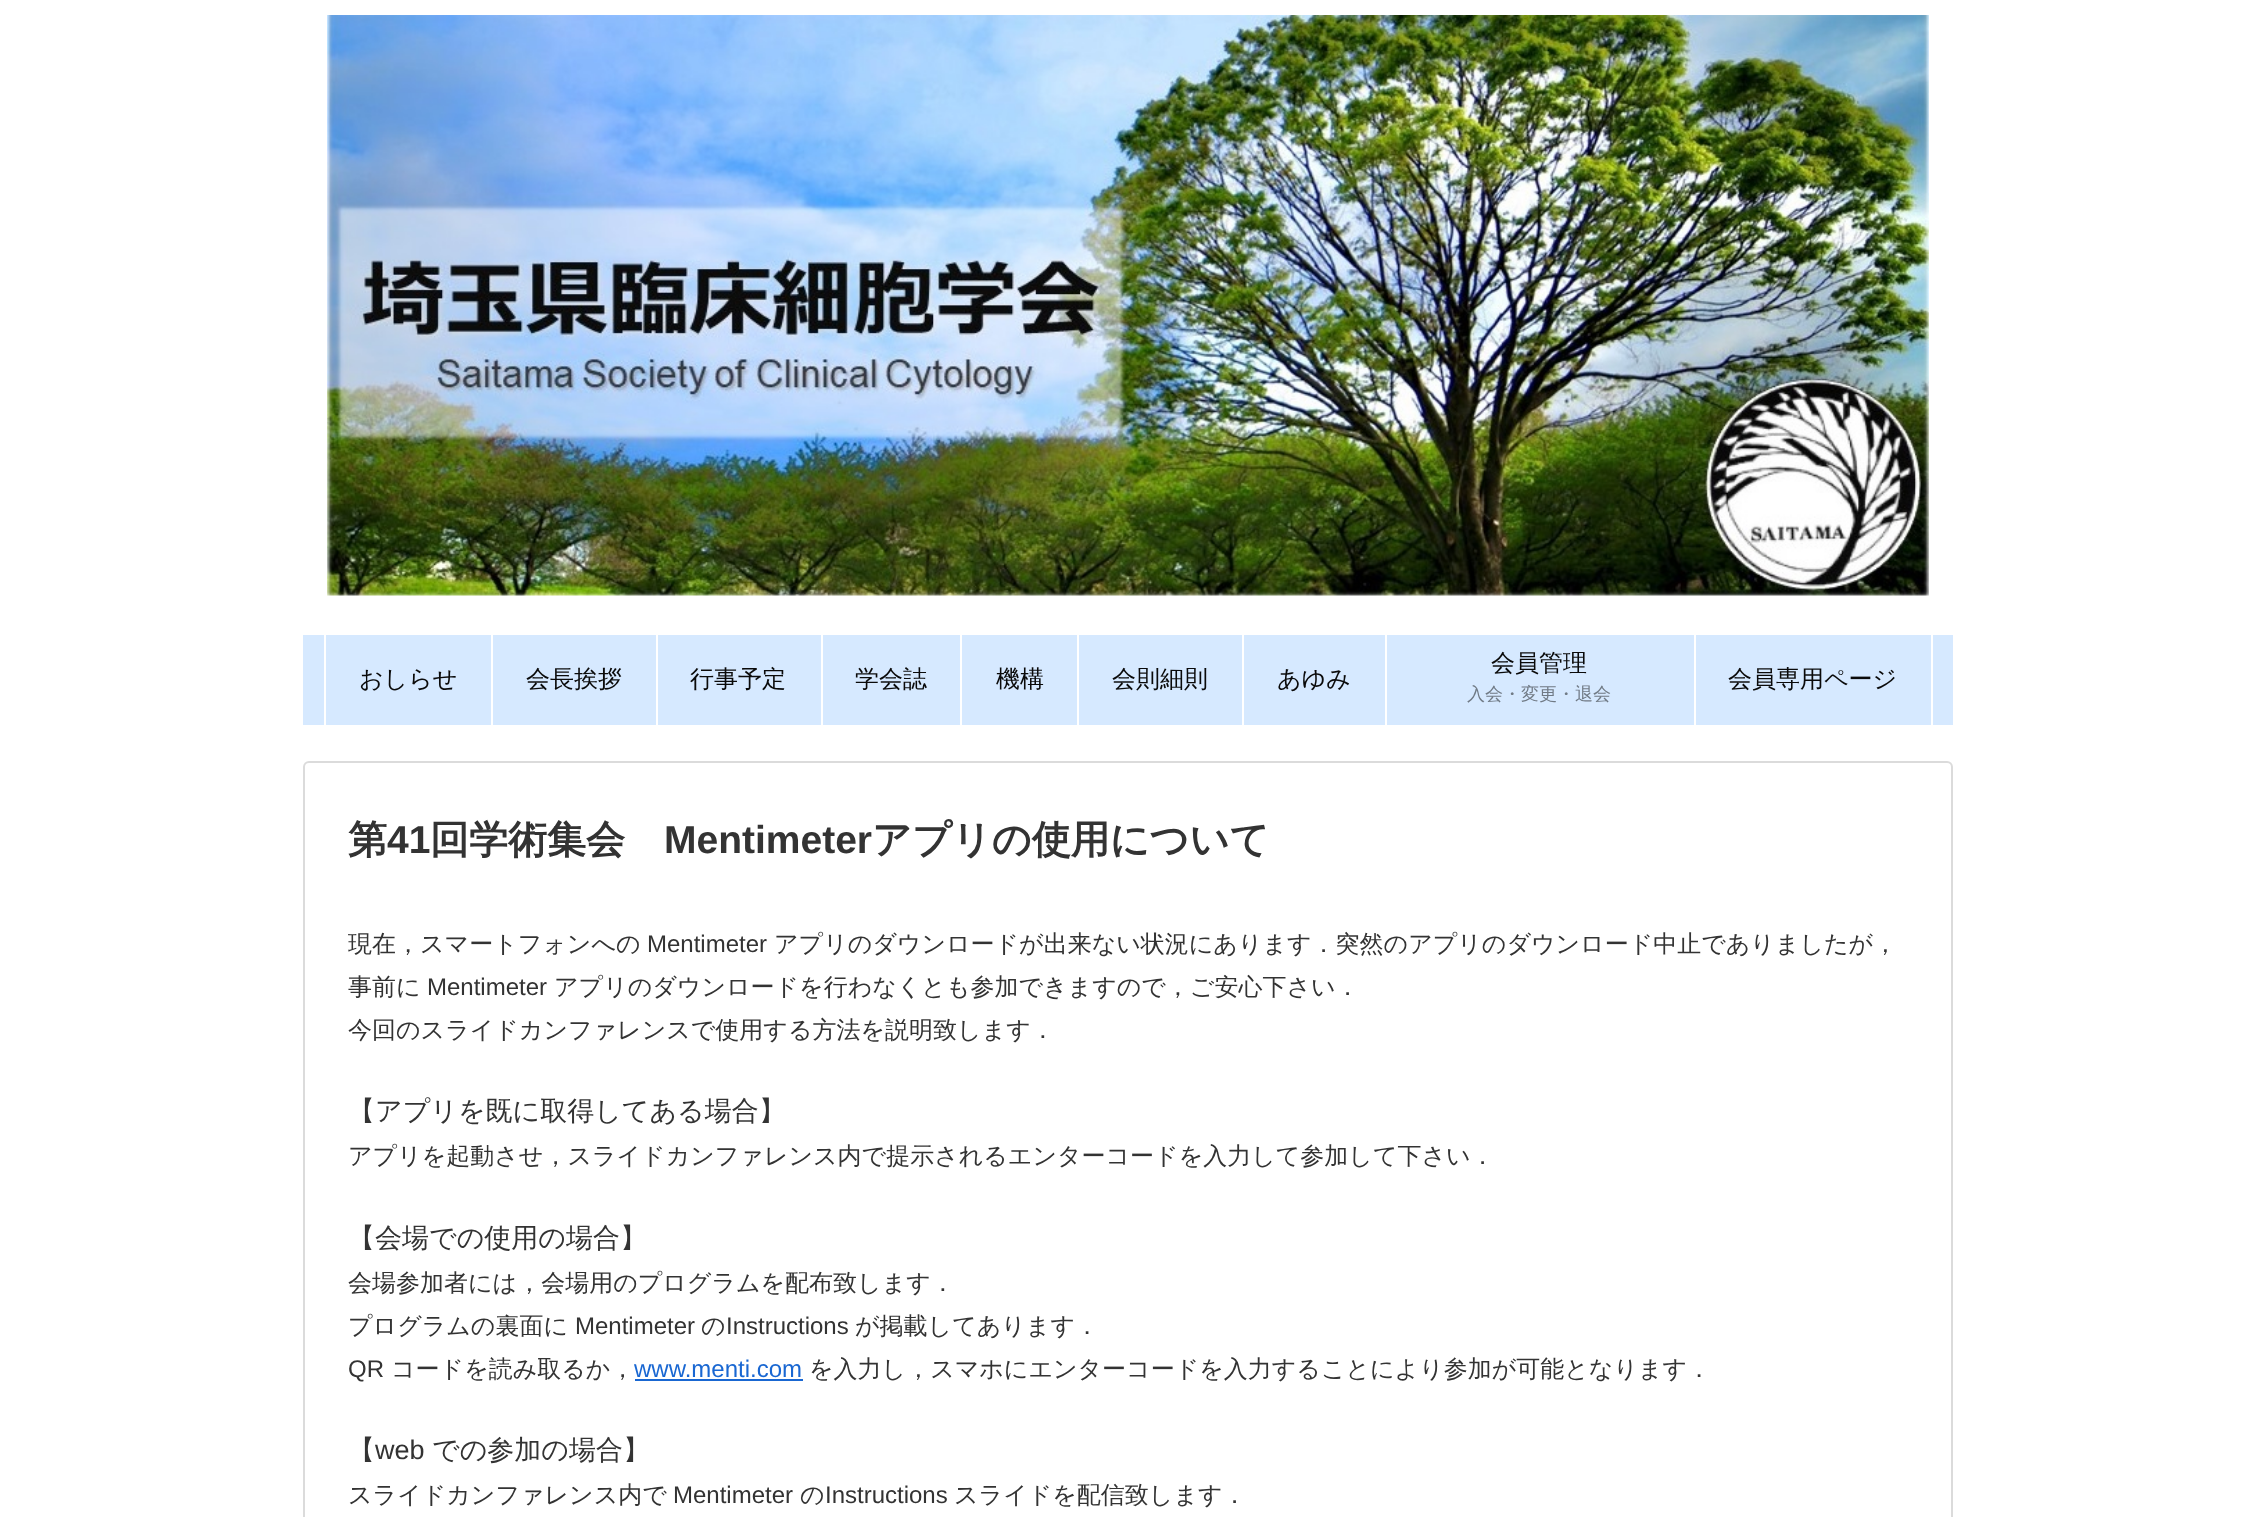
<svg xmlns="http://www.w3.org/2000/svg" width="2255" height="1517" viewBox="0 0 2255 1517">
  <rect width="100%" height="100%" fill="#fff"/>
  <image x="327" y="15" width="1602" height="581" href="img/1.png"/>
  <path d="M303 635h1650v90H303z" fill="#d6e9ff"/>
  <path d="M324 635h2v90H324z" fill="#fff"/>
  <path d="M491 635h2v90H491z" fill="#fff"/>
  <path d="M656 635h2v90H656z" fill="#fff"/>
  <path d="M821 635h2v90H821z" fill="#fff"/>
  <path d="M960 635h2v90H960z" fill="#fff"/>
  <path d="M1077 635h2v90H1077z" fill="#fff"/>
  <path d="M1242 635h2v90H1242z" fill="#fff"/>
  <path d="M1385 635h2v90H1385z" fill="#fff"/>
  <path d="M1931 635h2v90H1931z" fill="#fff"/>
  <path d="M1694 635h2v90H1694z" fill="#fff"/>
  <rect x="304" y="762" width="1648" height="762" rx="5" fill="none" stroke="#dbdbdb" stroke-width="2"/>
  <path d="M635 1379h168v2H635z" fill="#1967d2"/>
  <g font-family="WenQuanYi Zen Hei" font-size="24" font-weight="500" fill="#0a0a0a">
    <text x="359" y="687">おしらせ</text>
    <text x="526" y="687">会長挨拶</text>
    <text x="690" y="687">行事予定</text>
    <text x="855" y="687">学会誌</text>
    <text x="996" y="687">機構</text>
    <text x="1112" y="687">会則細則</text>
    <text x="1277" y="687">あゆみ</text>
    <text x="1491" y="671">会員管理</text>
  </g>
  <text x="1467" y="700" font-family="WenQuanYi Zen Hei" font-size="18" font-weight="500" fill="#707a85">入会・変更・退会</text>
  <text x="1728" y="687" font-family="WenQuanYi Zen Hei" font-size="24" font-weight="500" fill="#0a0a0a">会員専用ページ</text>
  <text x="348" y="853" font-family="WenQuanYi Zen Hei" font-size="39" font-weight="bold" fill="#333">第</text>
  <text x="387" y="853" font-family="Liberation Sans" font-size="39" font-weight="bold" fill="#333">41</text>
  <text x="430" y="853" font-family="WenQuanYi Zen Hei" font-size="39" font-weight="bold" fill="#333">回学術集会</text>
  <text x="664" y="853" font-family="Liberation Sans" font-size="39" font-weight="bold" fill="#333">Mentimeter</text>
  <text x="872" y="853" font-family="WenQuanYi Zen Hei" font-size="39" font-weight="bold" fill="#333">アプリの使用について</text>
  <text x="348" y="952" font-family="WenQuanYi Zen Hei" font-size="24" font-weight="500" fill="#333">現在，スマートフォンへの</text>
  <text x="647" y="952" font-family="Liberation Sans" font-size="24" fill="#333">Mentimeter</text>
  <g font-family="WenQuanYi Zen Hei" font-size="24" font-weight="500" fill="#333">
    <text x="774" y="952">アプリのダウンロードが出来ない状況にあります．突然のアプリのダウンロード中止でありましたが，</text>
    <text x="348" y="995">事前に</text>
  </g>
  <text x="427" y="995" font-family="Liberation Sans" font-size="24" fill="#333">Mentimeter</text>
  <g font-family="WenQuanYi Zen Hei" font-size="24" font-weight="500" fill="#333">
    <text x="554" y="995">アプリのダウンロードを行わなくとも参加できますので，ご安心下さい．</text>
    <text x="348" y="1038">今回のスライドカンファレンスで使用する方法を説明致します．</text>
  </g>
  <text x="348" y="1120" font-family="WenQuanYi Zen Hei" font-size="27" font-weight="500" fill="#333">【アプリを既に取得してある場合】</text>
  <text x="348" y="1164" font-family="WenQuanYi Zen Hei" font-size="24" font-weight="500" fill="#333">アプリを起動させ，スライドカンファレンス内で提示されるエンターコードを入力して参加して下さい．</text>
  <text x="348" y="1247" font-family="WenQuanYi Zen Hei" font-size="27" font-weight="500" fill="#333">【会場での使用の場合】</text>
  <g font-family="WenQuanYi Zen Hei" font-size="24" font-weight="500" fill="#333">
    <text x="348" y="1291">会場参加者には，会場用のプログラムを配布致します．</text>
    <text x="348" y="1334">プログラムの裏面に</text>
  </g>
  <text x="575" y="1334" font-family="Liberation Sans" font-size="24" fill="#333">Mentimeter</text>
  <text x="701" y="1334" font-family="WenQuanYi Zen Hei" font-size="24" font-weight="500" fill="#333">の</text>
  <text x="726" y="1334" font-family="Liberation Sans" font-size="24" fill="#333">Instructions</text>
  <text x="855" y="1334" font-family="WenQuanYi Zen Hei" font-size="24" font-weight="500" fill="#333">が掲載してあります．</text>
  <text x="348" y="1377" font-family="Liberation Sans" font-size="24" fill="#333">QR</text>
  <text x="391" y="1377" font-family="WenQuanYi Zen Hei" font-size="24" font-weight="500" fill="#333">コードを読み取るか，</text>
  <text x="634" y="1377" font-family="Liberation Sans" font-size="24" fill="#1967d2">www.menti.com</text>
  <text x="809" y="1377" font-family="WenQuanYi Zen Hei" font-size="24" font-weight="500" fill="#333">を入力し，スマホにエンターコードを入力することにより参加が可能となります．</text>
  <text x="348" y="1459" font-family="WenQuanYi Zen Hei" font-size="27" font-weight="500" fill="#333">【</text>
  <text x="375" y="1459" font-family="Liberation Sans" font-size="27" fill="#333">web</text>
  <text x="432" y="1459" font-family="WenQuanYi Zen Hei" font-size="27" font-weight="500" fill="#333">での参加の場合】</text>
  <text x="348" y="1503" font-family="WenQuanYi Zen Hei" font-size="24" font-weight="500" fill="#333">スライドカンファレンス内で</text>
  <text x="673" y="1503" font-family="Liberation Sans" font-size="24" fill="#333">Mentimeter</text>
  <text x="800" y="1503" font-family="WenQuanYi Zen Hei" font-size="24" font-weight="500" fill="#333">の</text>
  <text x="825" y="1503" font-family="Liberation Sans" font-size="24" fill="#333">Instructions</text>
  <text x="954" y="1503" font-family="WenQuanYi Zen Hei" font-size="24" font-weight="500" fill="#333">スライドを配信致します．</text>
</svg>
